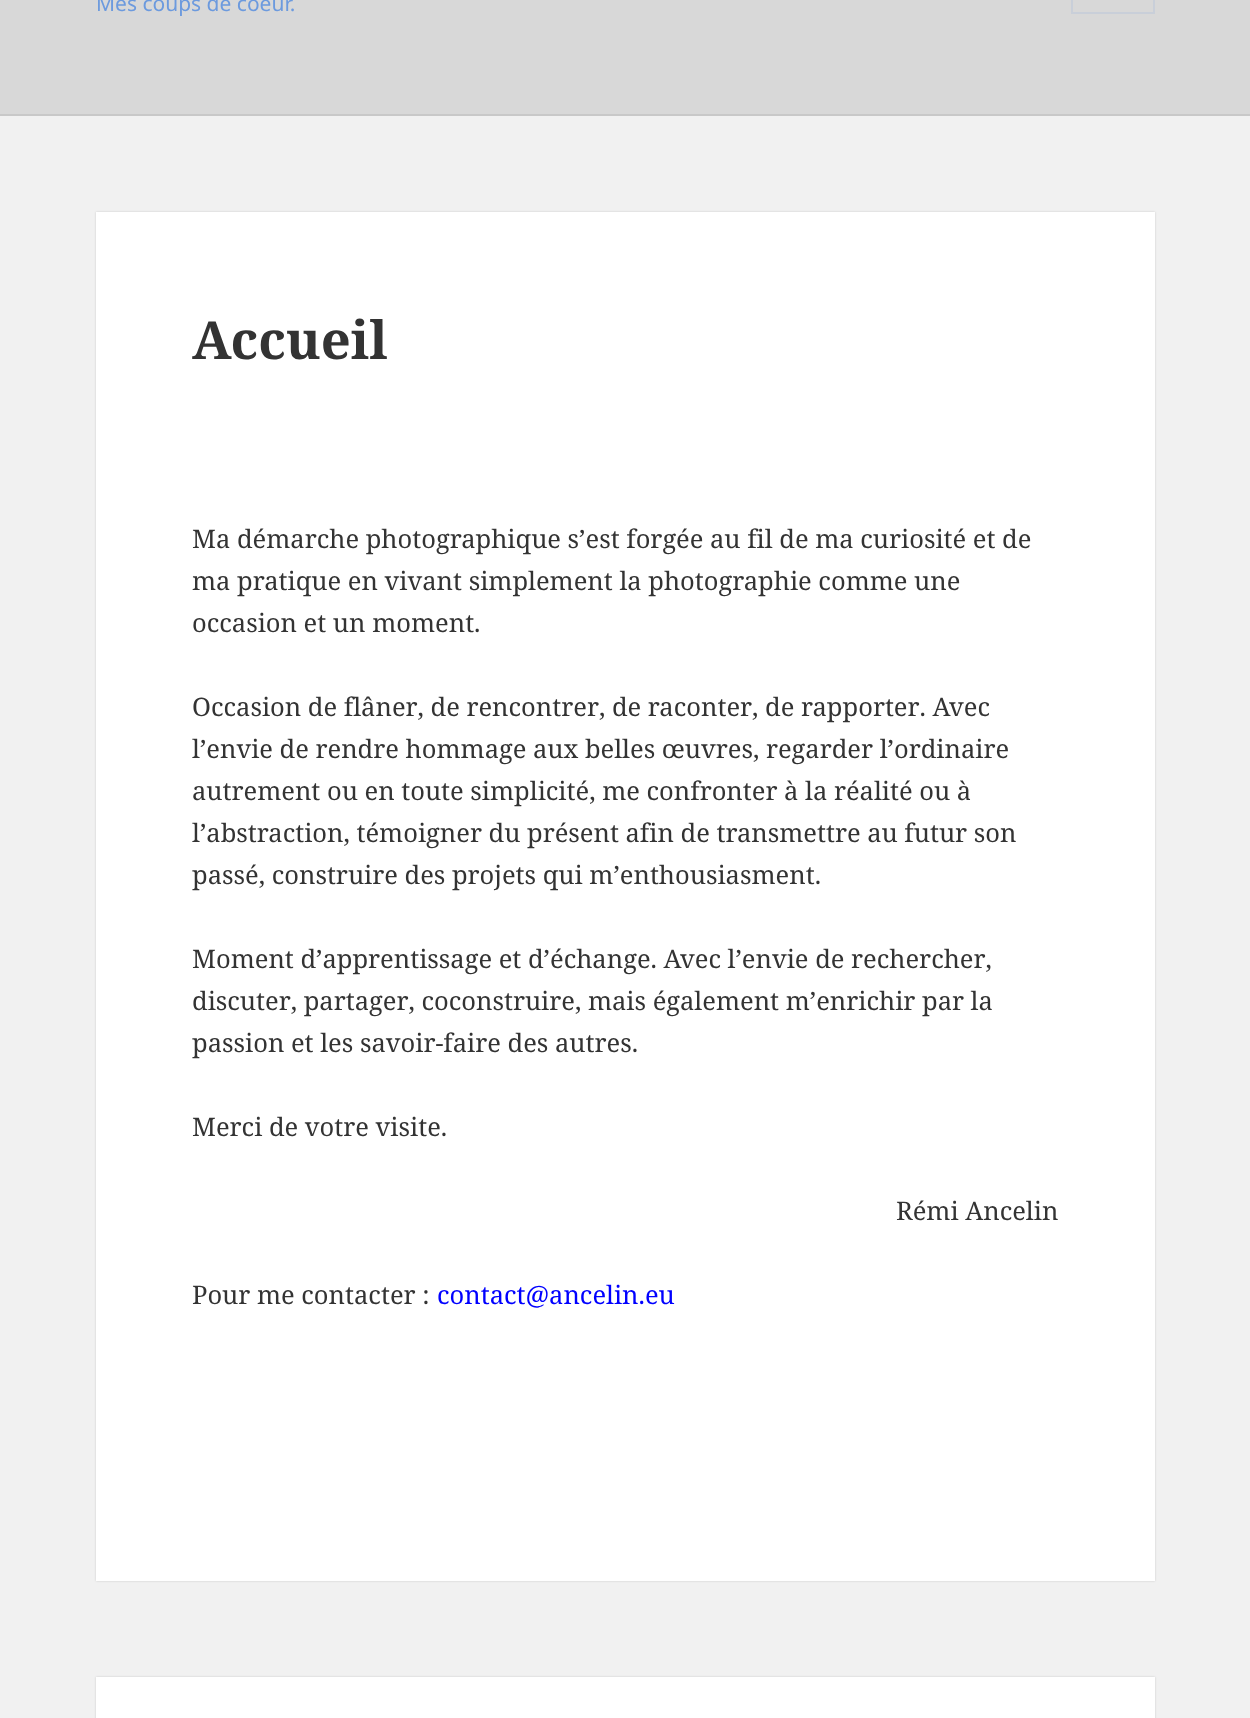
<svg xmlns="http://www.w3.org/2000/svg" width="1250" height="1718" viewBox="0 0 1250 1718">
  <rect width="100%" height="100%" fill="#f1f1f1"/>
  <path d="M0 0h1250v114H0z" fill="#d8d8d8"/>
  <path d="M0 114h1250v2H0z" fill="#c8c8c8"/>
  <path d="M1072 -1h82v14H1072z" fill="none" stroke="#c9cfd9" stroke-width="2"/>
  <path d="M96 212h1059v1369H96z" fill="#00000026" filter="blur(1px)"/>
  <path d="M96 212h1059v1369H96z" fill="#fff"/>
  <path d="M96 1677h1059v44H96z" fill="#00000026" filter="blur(1px)"/>
  <path d="M96 1677h1059v41H96z" fill="#fff"/>
  <text x="96" y="11" font-family="Noto Sans" font-size="21" fill="#6c9ade">Mes coups de coeur.</text>
  <text x="192" y="359" font-family="Noto Serif" font-size="52.5" font-weight="bold" fill="#333">Accueil</text>
  <g font-family="Noto Serif" font-size="25.5" fill="#333">
    <text x="192" y="548">Ma démarche photographique s’est forgée au fil de ma curiosité et de</text>
    <text x="192" y="590">ma pratique en vivant simplement la photographie comme une</text>
    <text x="192" y="632">occasion et un moment.</text>
    <text x="192" y="716">Occasion de flâner, de rencontrer, de raconter, de rapporter. Avec</text>
    <text x="192" y="758">l’envie de rendre hommage aux belles œuvres, regarder l’ordinaire</text>
    <text x="192" y="800">autrement ou en toute simplicité, me confronter à la réalité ou à</text>
    <text x="192" y="842">l’abstraction, témoigner du présent afin de transmettre au futur son</text>
    <text x="192" y="884">passé, construire des projets qui m’enthousiasment.</text>
    <text x="192" y="968">Moment d’apprentissage et d’échange. Avec l’envie de rechercher,</text>
    <text x="192" y="1010">discuter, partager, coconstruire, mais également m’enrichir par la</text>
    <text x="192" y="1052">passion et les savoir-faire des autres.</text>
    <text x="192" y="1136">Merci de votre visite.</text>
    <text x="896" y="1220">Rémi Ancelin</text>
    <text x="192" y="1304">Pour me contacter :</text>
  </g>
  <text x="437" y="1304" font-family="Noto Serif" font-size="25.5" fill="#00f">contact@ancelin.eu</text>
</svg>
